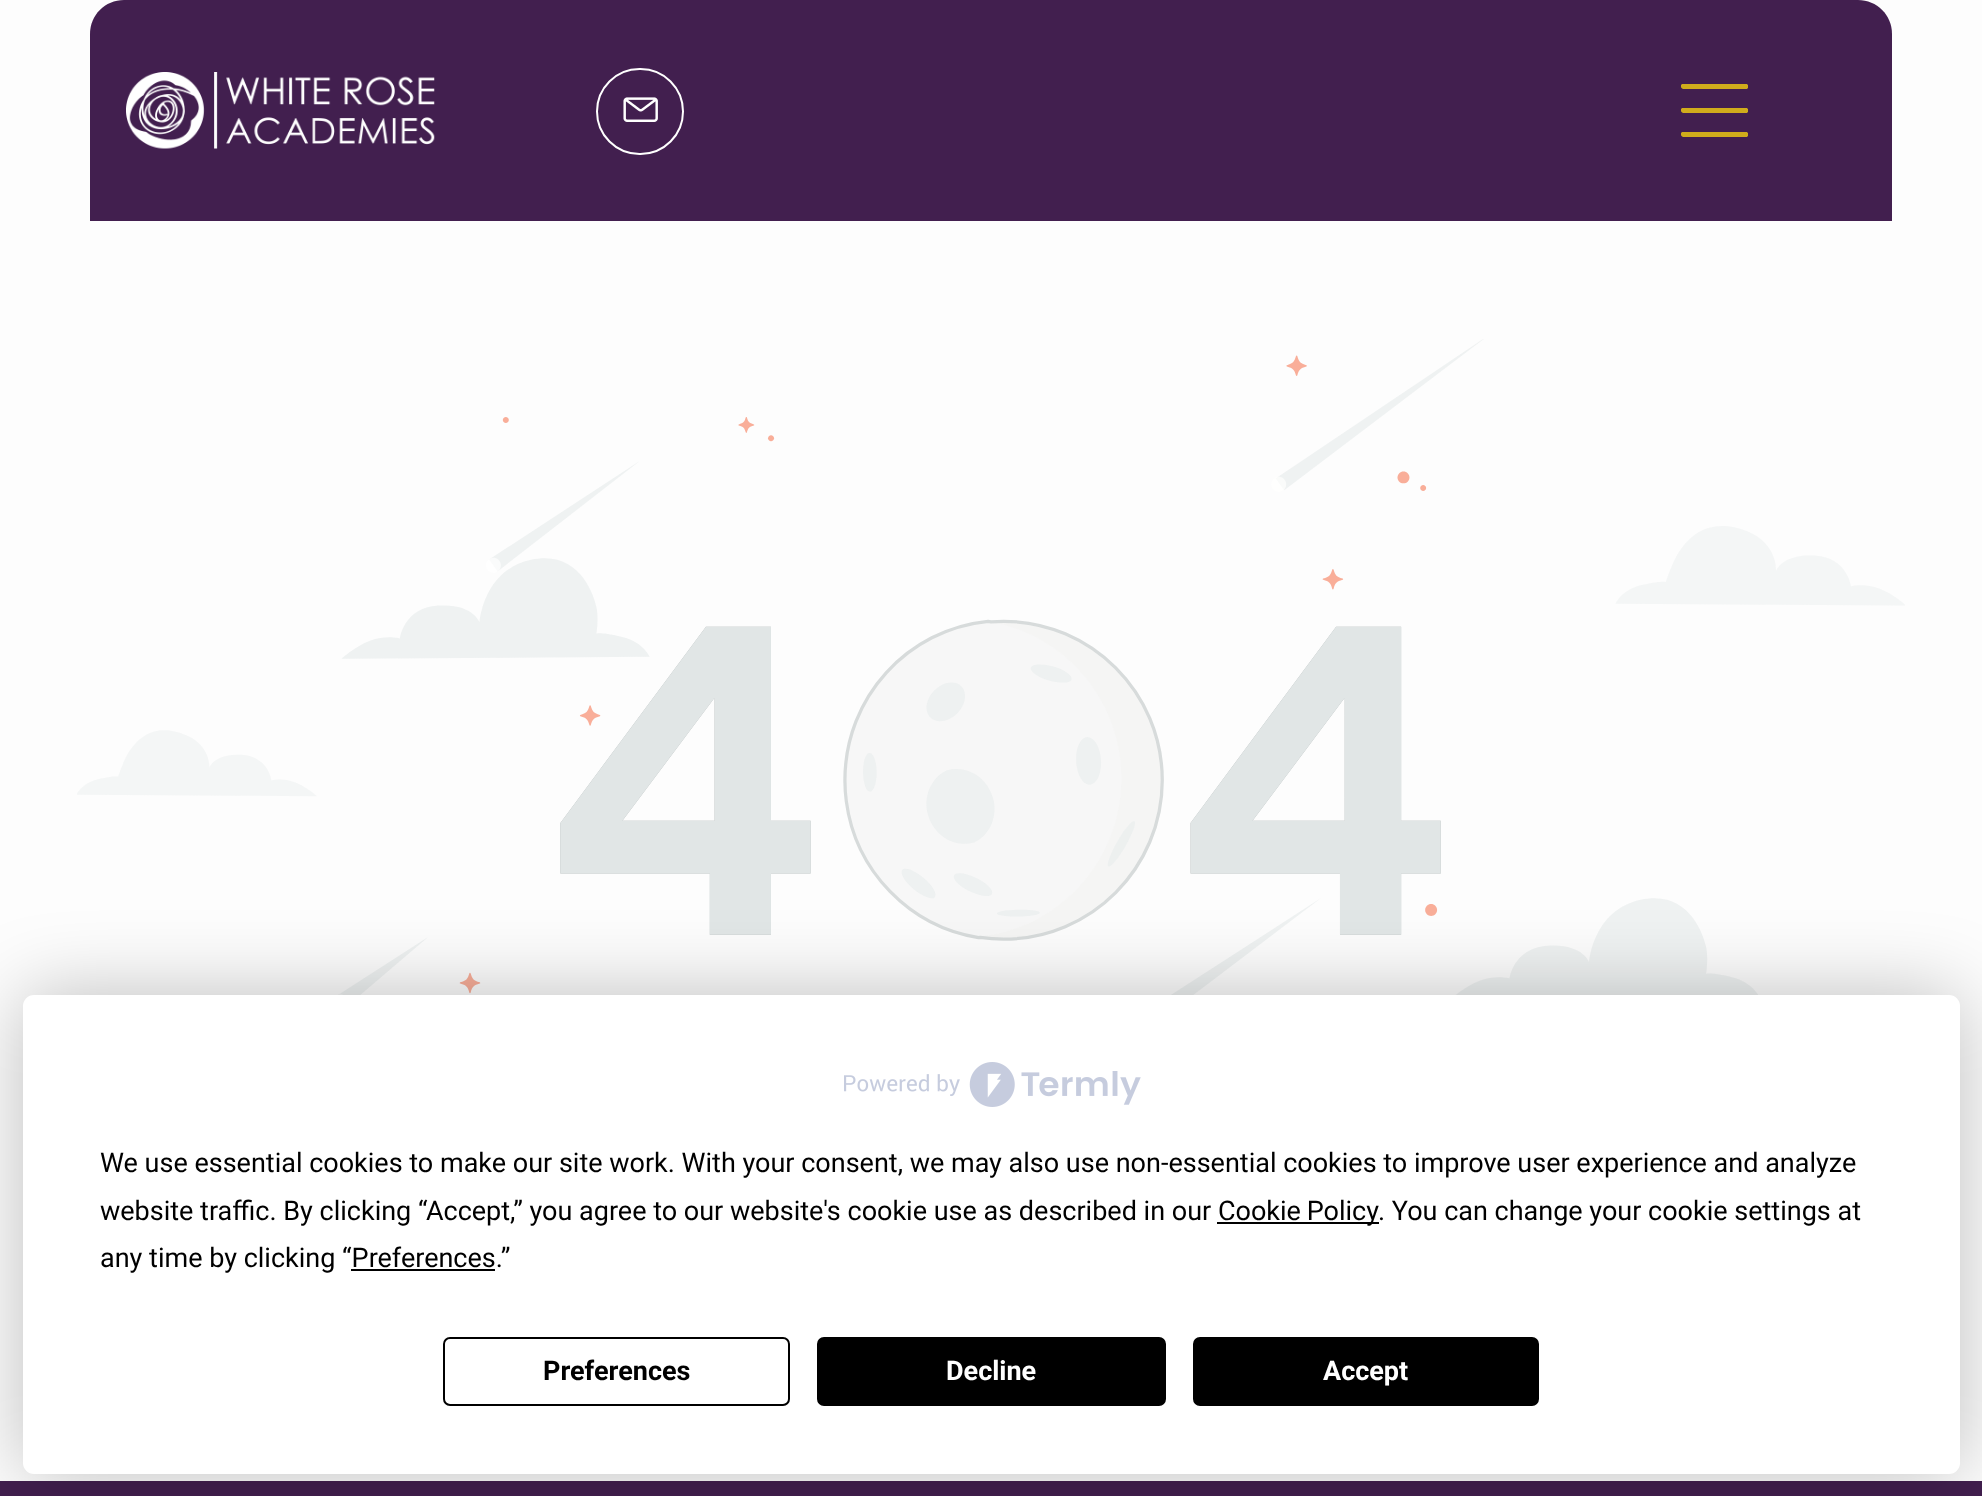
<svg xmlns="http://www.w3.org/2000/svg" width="1982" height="1496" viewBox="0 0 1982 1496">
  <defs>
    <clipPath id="clip1"><path d="M1681 77h67v67H1681z"/></clipPath>
  </defs>
  <rect width="100%" height="100%" fill="#fdfdfd"/>
  <path d="M124 0H1858C1877 0 1892 15 1892 34V221H90V34C90 15 105 0 124 0Z" fill="#421f4f"/>
  <image x="126" y="72" width="309" height="77" href="img/1.png"/>
  <rect x="597" y="69" width="86" height="85" rx="42.5" fill="none" stroke="#fff" stroke-width="2"/>
  <image x="623" y="97" width="35" height="25" href="img/2.png"/>
  <g clip-path="url(#clip1)">
    <path d="M1683 84C1680 84 1680 88 1683 89H1746C1749 89 1749 84 1746 84ZM1683 108C1680 108 1680 112 1683 113H1746C1749 113 1749 108 1746 108ZM1683 132C1680 132 1680 136 1683 137H1746C1749 137 1749 132 1746 132Z" fill="#d0ac1c"/>
  </g>
  <image x="77" y="339" width="1828" height="656" href="img/3.png"/>
  <path d="M0 1481h1982v15H0z" fill="#421f4f"/>
  <rect x="23" y="995" width="1937" height="479" rx="11" fill="#00000040" filter="blur(39.5px)"/>
  <rect x="23" y="995" width="1937" height="479" rx="11" fill="#fff"/>
  <image x="844" y="1062" width="297" height="45" href="img/4.png"/>
  <path d="M1217 1222h162v2H1217z" fill="#000"/>
  <path d="M351 1269h144v2H351z" fill="#000"/>
  <rect x="444" y="1338" width="345" height="67" rx="6" fill="none" stroke="#000" stroke-width="2"/>
  <rect x="818" y="1338" width="347" height="67" rx="6" fill="#000" stroke="#000" stroke-width="2"/>
  <rect x="1194" y="1338" width="344" height="67" rx="6" fill="#000" stroke="#000" stroke-width="2"/>
  <g font-family="Roboto" font-size="27" fill="#000">
    <text x="100" y="1172">We use essential cookies to make our site work. With your consent, we may also use non-essential cookies to improve user experience and analyze</text>
    <text x="100" y="1220">website traffic. By clicking “Accept,” you agree to our website's cookie use as described in our</text>
    <text x="1218" y="1220" word-spacing="-1">Cookie Policy</text>
    <text x="1378" y="1220">. You can change your cookie settings at</text>
    <text x="100" y="1267">any time by clicking “Preferences.”</text>
  </g>
  <text x="543" y="1380" font-family="Roboto" font-size="27" font-weight="bold" fill="#000">Preferences</text>
  <g font-family="Roboto" font-size="27" font-weight="bold" fill="#fff">
    <text x="946" y="1380">Decline</text>
    <text x="1323" y="1380">Accept</text>
  </g>
</svg>
